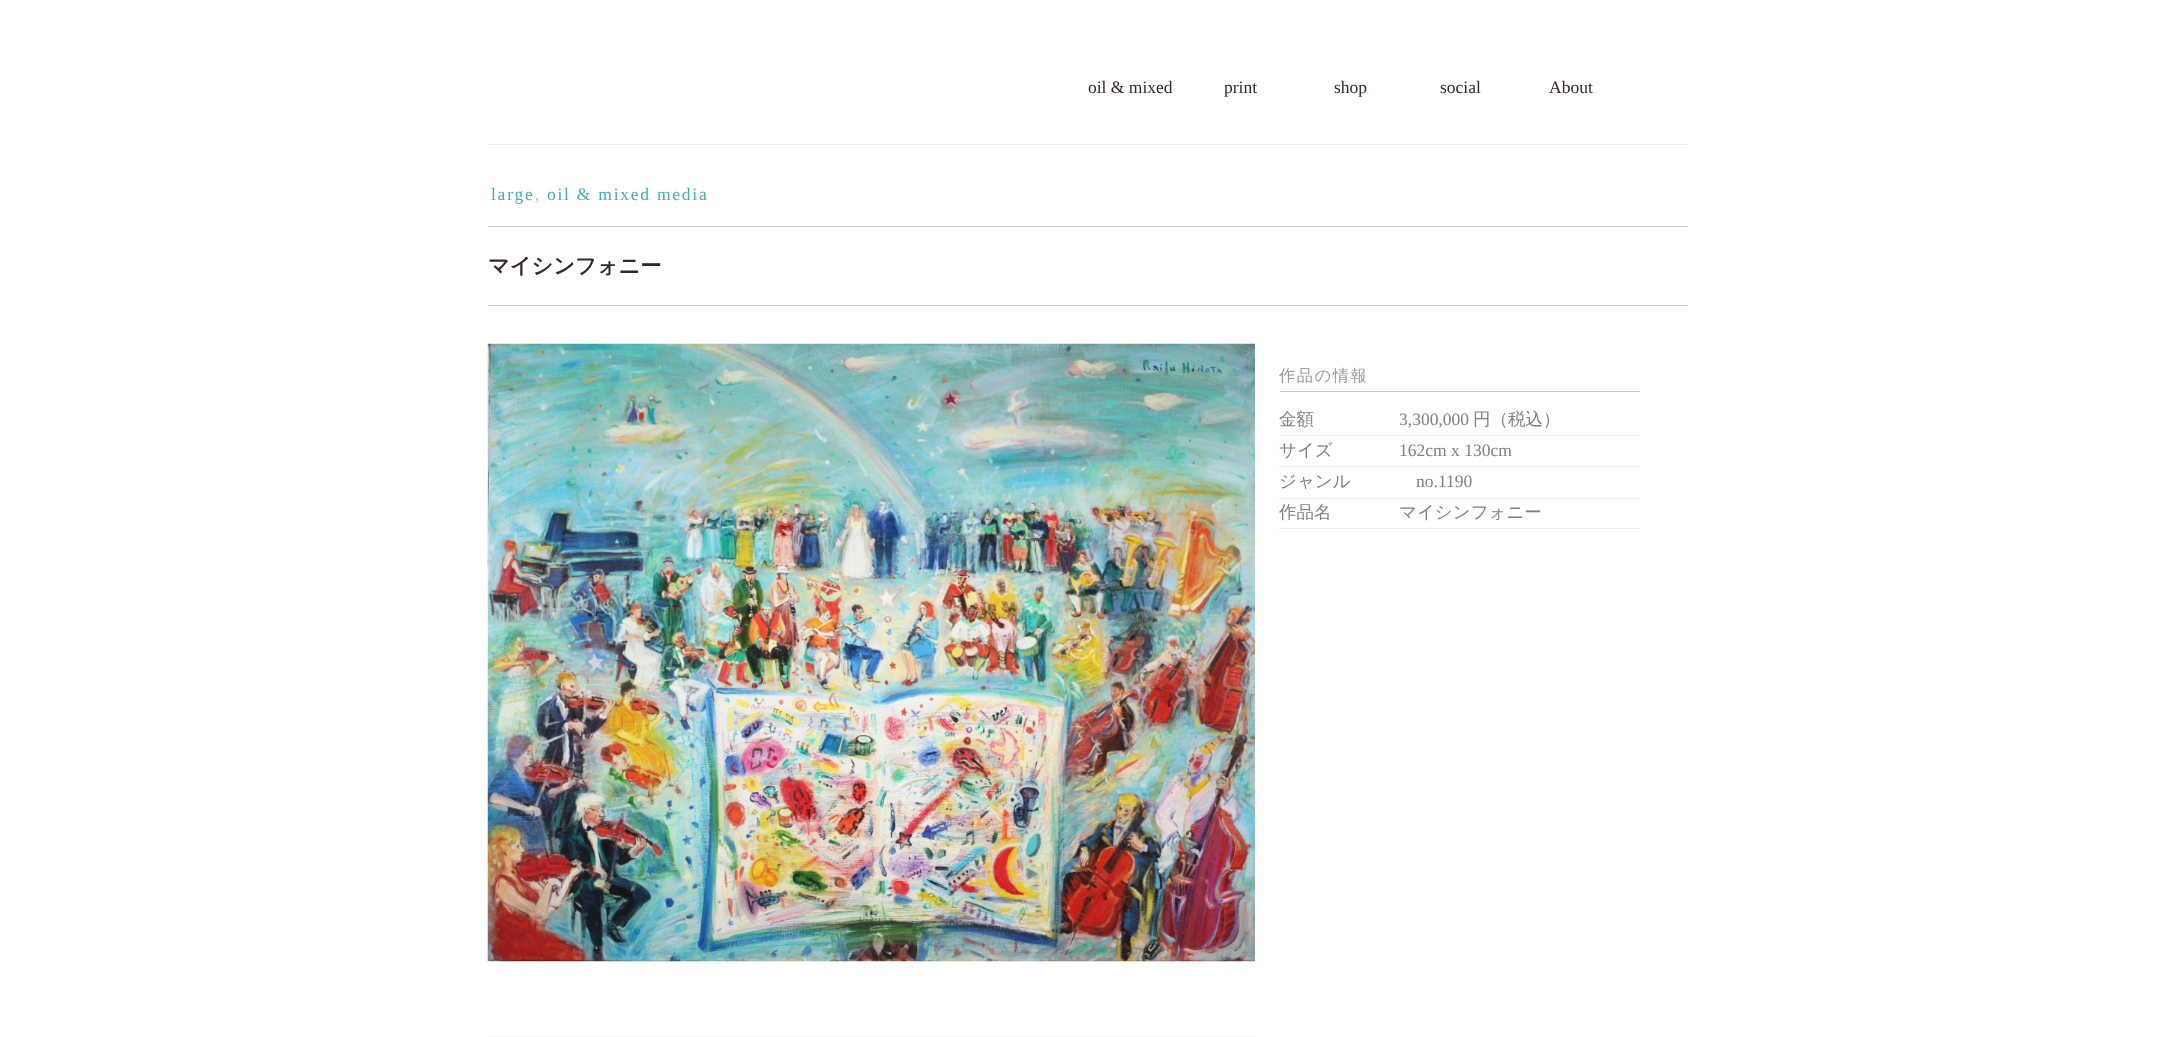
<svg xmlns="http://www.w3.org/2000/svg" width="2175" height="1037" viewBox="0 0 2175 1037">
  <rect width="100%" height="100%" fill="#fff"/>
  <path d="M488 144h1200v1H488z" fill="#eee"/>
  <path d="M488 226h1200v1H488z" fill="#ccc"/>
  <path d="M488 305h1200v1H488z" fill="#ccc"/>
  <image x="487" y="343" width="768" height="619" href="img/1.png"/>
  <path d="M488 1036h767v1H488z" fill="#f7f7f7"/>
  <path d="M1280 391h360v1H1280z" fill="#ccc"/>
  <path d="M1279 435h361v1H1279z" fill="#eee"/>
  <path d="M1279 466h361v1H1279z" fill="#eee"/>
  <path d="M1279 498h361v1H1279z" fill="#eee"/>
  <path d="M1279 528h361v1H1279z" fill="#eee"/>
  <g font-family="Liberation Serif" font-size="17.5" fill="#332828">
    <text x="1088" y="93">oil &amp; mixed</text>
    <text x="1224" y="93">print</text>
    <text x="1334" y="93">shop</text>
    <text x="1440" y="93">social</text>
    <text x="1549" y="93">About</text>
  </g>
  <text x="491" y="200" font-family="Liberation Serif" font-size="17.5" letter-spacing="1.75" fill="#45aab8">large</text>
  <text x="535" y="200" font-family="Liberation Serif" font-size="17.5" letter-spacing="1.75" fill="#bbb">,</text>
  <text x="547" y="200" font-family="Liberation Serif" font-size="17.5" letter-spacing="1.75" fill="#45aab8">oil &amp; mixed media</text>
  <text x="488" y="273" font-family="WenQuanYi Zen Hei" font-size="21.25" font-weight="bold" fill="#332828">マイシンフォニー</text>
  <text x="1279" y="381" font-family="WenQuanYi Zen Hei" font-size="16.25" font-weight="500" letter-spacing="1.5" fill="#999">作品の情報</text>
  <text x="1279" y="425" font-family="WenQuanYi Zen Hei" font-size="17.5" font-weight="500" fill="#808080">金額</text>
  <text x="1399" y="425" font-family="Liberation Serif" font-size="17.5" fill="#808080">3,300,000</text>
  <g font-family="WenQuanYi Zen Hei" font-size="17.5" font-weight="500" fill="#808080">
    <text x="1473" y="425">円（税込）</text>
    <text x="1279" y="456">サイズ</text>
  </g>
  <text x="1399" y="456" font-family="Liberation Serif" font-size="17.5" fill="#808080">162cm x 130cm</text>
  <text x="1279" y="487" font-family="WenQuanYi Zen Hei" font-size="17.5" font-weight="500" fill="#808080">ジャンル</text>
  <text x="1416" y="487" font-family="Liberation Serif" font-size="17.5" fill="#808080">no.1190</text>
  <g font-family="WenQuanYi Zen Hei" font-size="17.5" font-weight="500" fill="#808080">
    <text x="1279" y="518">作品名</text>
    <text x="1399" y="518">マイシンフォニー</text>
  </g>
</svg>
